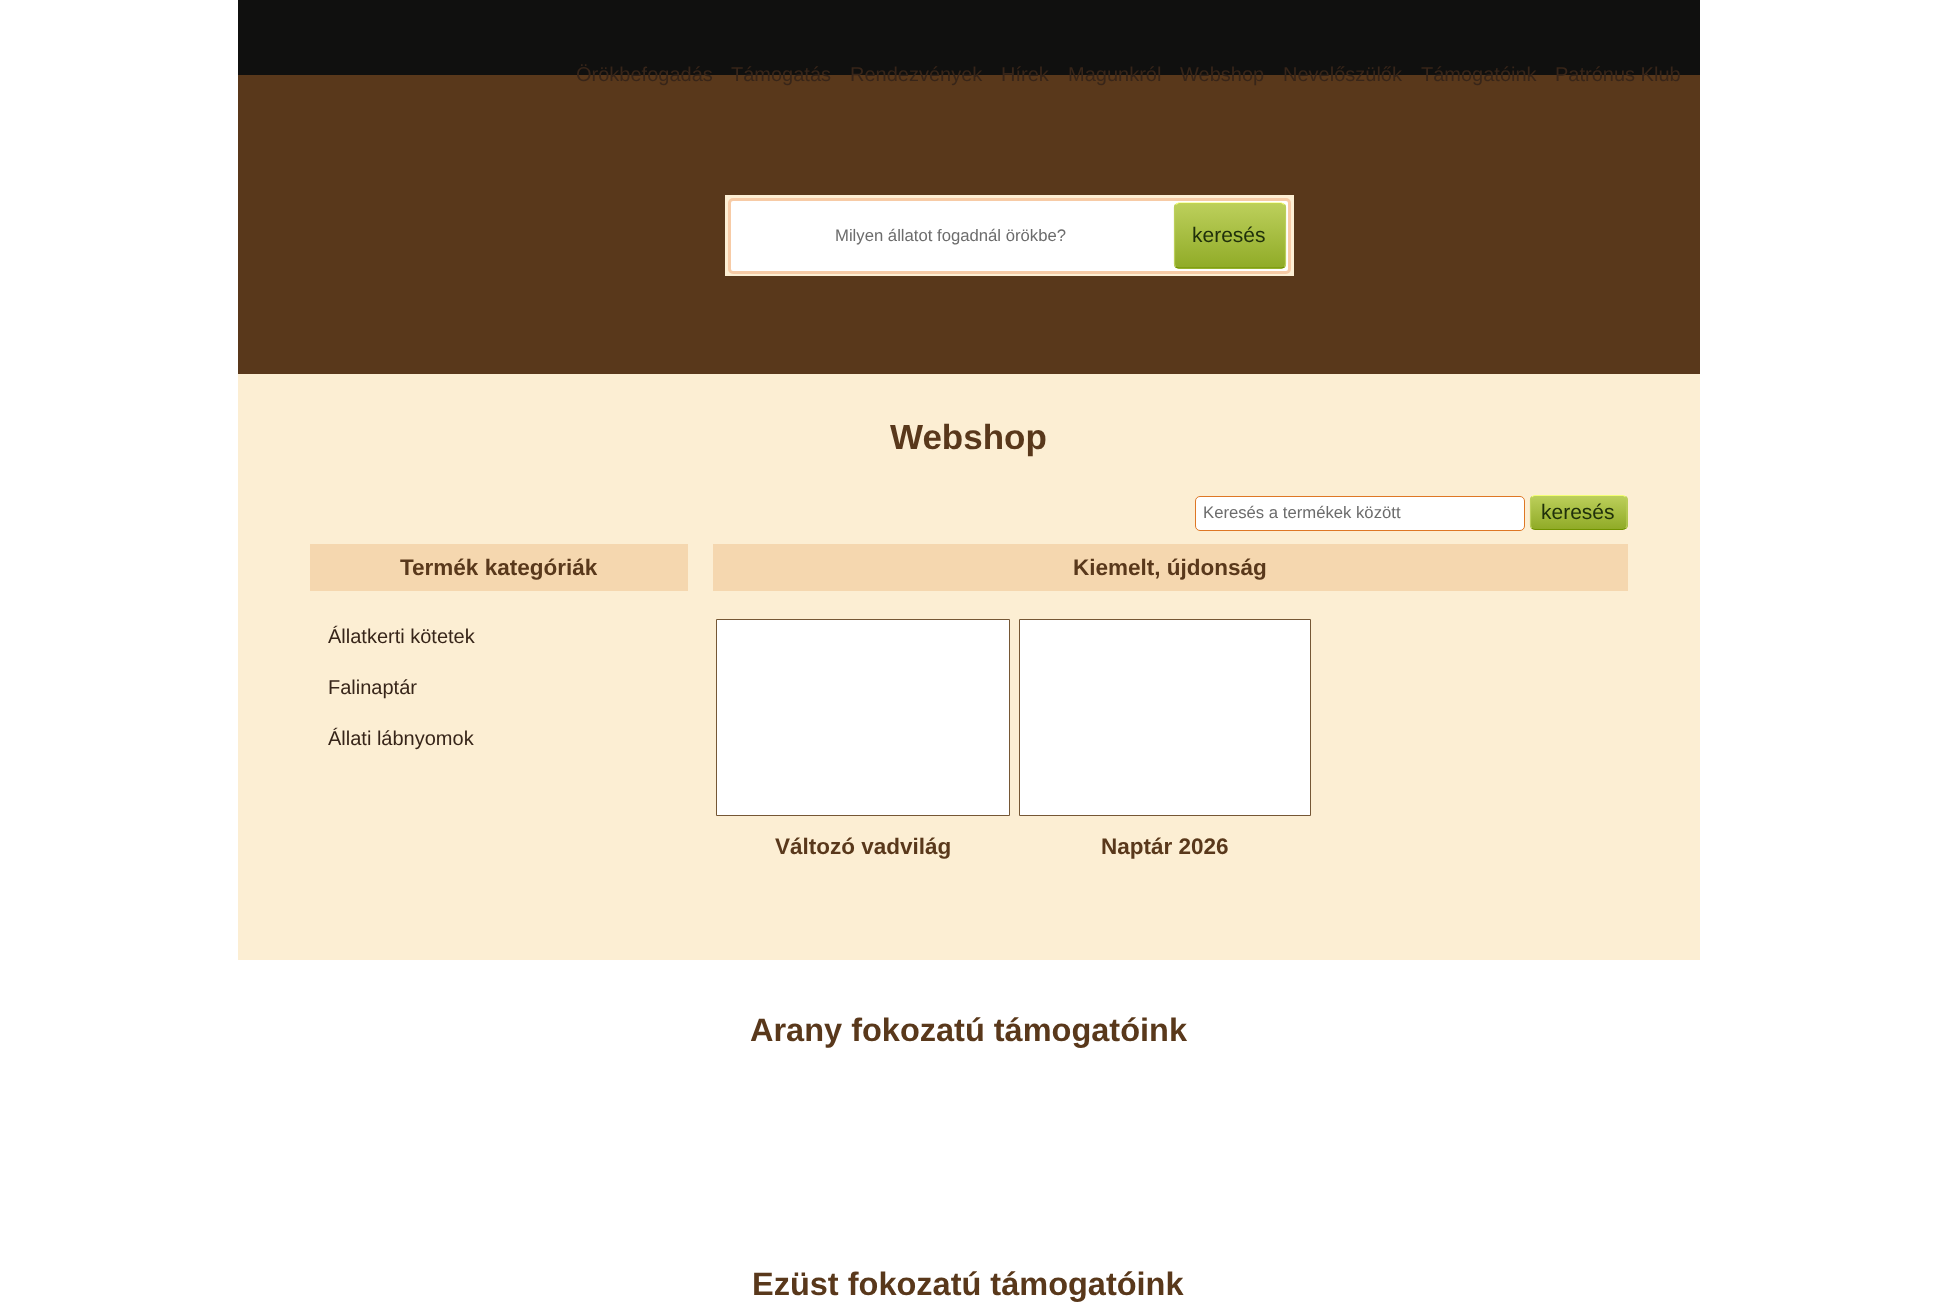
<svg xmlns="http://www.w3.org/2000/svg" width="1936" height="1316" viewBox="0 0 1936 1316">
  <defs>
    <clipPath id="clip1"><rect x="1174" y="203" width="112" height="66" rx="5"/></clipPath>
    <linearGradient id="g1" gradientUnits="userSpaceOnUse" x1="1230" y1="140" x2="1230" y2="204"><stop offset="0" stop-color="#bccf5b"/><stop offset="1" stop-color="#90ab27"/></linearGradient>
    <linearGradient id="g2" gradientUnits="userSpaceOnUse" x1="1230" y1="204" x2="1230" y2="268"><stop offset="0" stop-color="#bccf5b"/><stop offset="1" stop-color="#90ab27"/></linearGradient>
    <linearGradient id="g3" gradientUnits="userSpaceOnUse" x1="1230" y1="268" x2="1230" y2="331"><stop offset="0" stop-color="#bccf5b"/><stop offset="1" stop-color="#90ab27"/></linearGradient>
    <clipPath id="clip2"><rect x="1530" y="495" width="98" height="35" rx="5"/></clipPath>
    <linearGradient id="g4" gradientUnits="userSpaceOnUse" x1="1579" y1="496" x2="1579" y2="529"><stop offset="0" stop-color="#bccf5b"/><stop offset="1" stop-color="#90ab27"/></linearGradient>
  </defs>
  <rect width="100%" height="100%" fill="#fff"/>
  <path d="M238 0h1462v75H238z" fill="#10100f"/>
  <path d="M238 75h1462v299H238z" fill="#59381b"/>
  <path d="M725 195h569v81H725z" fill="#fdefd4"/>
  <rect x="729.5" y="199.5" width="560" height="73" rx="3.5" fill="#fff" stroke="#f7cba6" stroke-width="3"/>
  <g clip-path="url(#clip1)">
    <path d="M1174 203h112v1H1174z" fill="url(#g1)"/>
    <path d="M1174 204h112v64H1174z" fill="url(#g2)"/>
    <path d="M1174 268h112v1H1174z" fill="url(#g3)"/>
  </g>
  <path d="M1175.5 204.5L1178.5 203H1281.5L1284.5 204.5" fill="none" stroke="#f3ff76" stroke-width="1.2"/>
  <path d="M1284.5 204.5C1285 205 1285.5 206.5 1285.5 207.5V264C1285.5 265 1285 266 1284.5 267" fill="none" stroke="#bccf5b" stroke-width="1.2"/>
  <path d="M1284.5 267L1281.5 268H1178.5L1175.5 267" fill="none" stroke="#719300" stroke-width="1.2"/>
  <path d="M1175.5 267C1175 266 1174.5 265 1174.5 264V207.5C1174.5 206.5 1175 205 1175.5 204.5" fill="none" stroke="#bccf5b" stroke-width="1.2"/>
  <path d="M238 374h1462v586H238z" fill="#fceed3"/>
  <rect x="1195.5" y="496.5" width="329" height="34" rx="4.5" fill="#fff" stroke="#de7725"/>
  <g clip-path="url(#clip2)">
    <path d="M1530 496h98v33H1530z" fill="url(#g4)"/>
  </g>
  <path d="M1532 497C1532.5 496 1534 495.5 1535 495.5H1622.5C1623.5 495.5 1625 496 1625.5 497" fill="none" stroke="#f3ff76" stroke-width="1.2"/>
  <path d="M1625.5 497C1626.5 497.5 1627 499 1627 500V525C1627 526 1626.5 527.5 1625.5 528" fill="none" stroke="#bccf5b" stroke-width="1.2"/>
  <path d="M1625.5 528C1625 529 1623.5 529.5 1622.5 529.5H1535C1534 529.5 1532.5 529 1532 528" fill="none" stroke="#719300" stroke-width="1.2"/>
  <path d="M1532 528C1531 527.5 1530.5 526 1530.5 525V500C1530.5 499 1531 497.5 1532 497" fill="none" stroke="#bccf5b" stroke-width="1.2"/>
  <path d="M310 544h378v47H310z" fill="#f5d7af"/>
  <path d="M713 544h915v47H713z" fill="#f5d7af"/>
  <path d="M716.5 619.5h293v196H716.5z" fill="#fff" stroke="#755735"/>
  <path d="M1019.5 619.5h291v196H1019.5z" fill="#fff" stroke="#755735"/>
  <g font-family="Liberation Sans" font-size="20" fill="#372519">
    <text x="576" y="81">Örökbefogadás</text>
    <text x="731" y="81">Támogatás</text>
    <text x="850" y="81">Rendezvények</text>
    <text x="1001" y="81">Hírek</text>
    <text x="1068" y="81">Magunkról</text>
    <text x="1180" y="81">Webshop</text>
    <text x="1283" y="81">Nevelőszülők</text>
    <text x="1421" y="81">Támogatóink</text>
    <text x="1555" y="81">Patrónus Klub</text>
  </g>
  <text x="835" y="241" font-family="Liberation Sans" font-size="16.7" fill="#6c6c6c">Milyen állatot fogadnál örökbe?</text>
  <text x="1192" y="242" font-family="Liberation Sans" font-size="21" fill="#20300b">keresés</text>
  <text x="890" y="449" font-family="Liberation Sans" font-size="35" font-weight="bold" fill="#59381b">Webshop</text>
  <text x="1203" y="518" font-family="Liberation Sans" font-size="16.7" fill="#6c6c6c">Keresés a termékek között</text>
  <text x="1541" y="519" font-family="Liberation Sans" font-size="21" fill="#20300b">keresés</text>
  <text x="400" y="575" font-family="Liberation Sans" font-size="22.5" font-weight="bold" fill="#59381b">Termék kategóriák</text>
  <g font-family="Liberation Sans" font-size="20" fill="#372519">
    <text x="328" y="643">Állatkerti kötetek</text>
    <text x="328" y="694">Falinaptár</text>
    <text x="328" y="745">Állati lábnyomok</text>
  </g>
  <g font-family="Liberation Sans" font-size="22.5" font-weight="bold" fill="#59381b">
    <text x="1073" y="575">Kiemelt, újdonság</text>
    <text x="775" y="854">Változó vadvilág</text>
    <text x="1101" y="854">Naptár 2026</text>
  </g>
  <g font-family="Liberation Sans" font-size="32.5" font-weight="bold" fill="#59381b">
    <text x="750" y="1041">Arany fokozatú támogatóink</text>
    <text x="752" y="1295">Ezüst fokozatú támogatóink</text>
  </g>
</svg>
